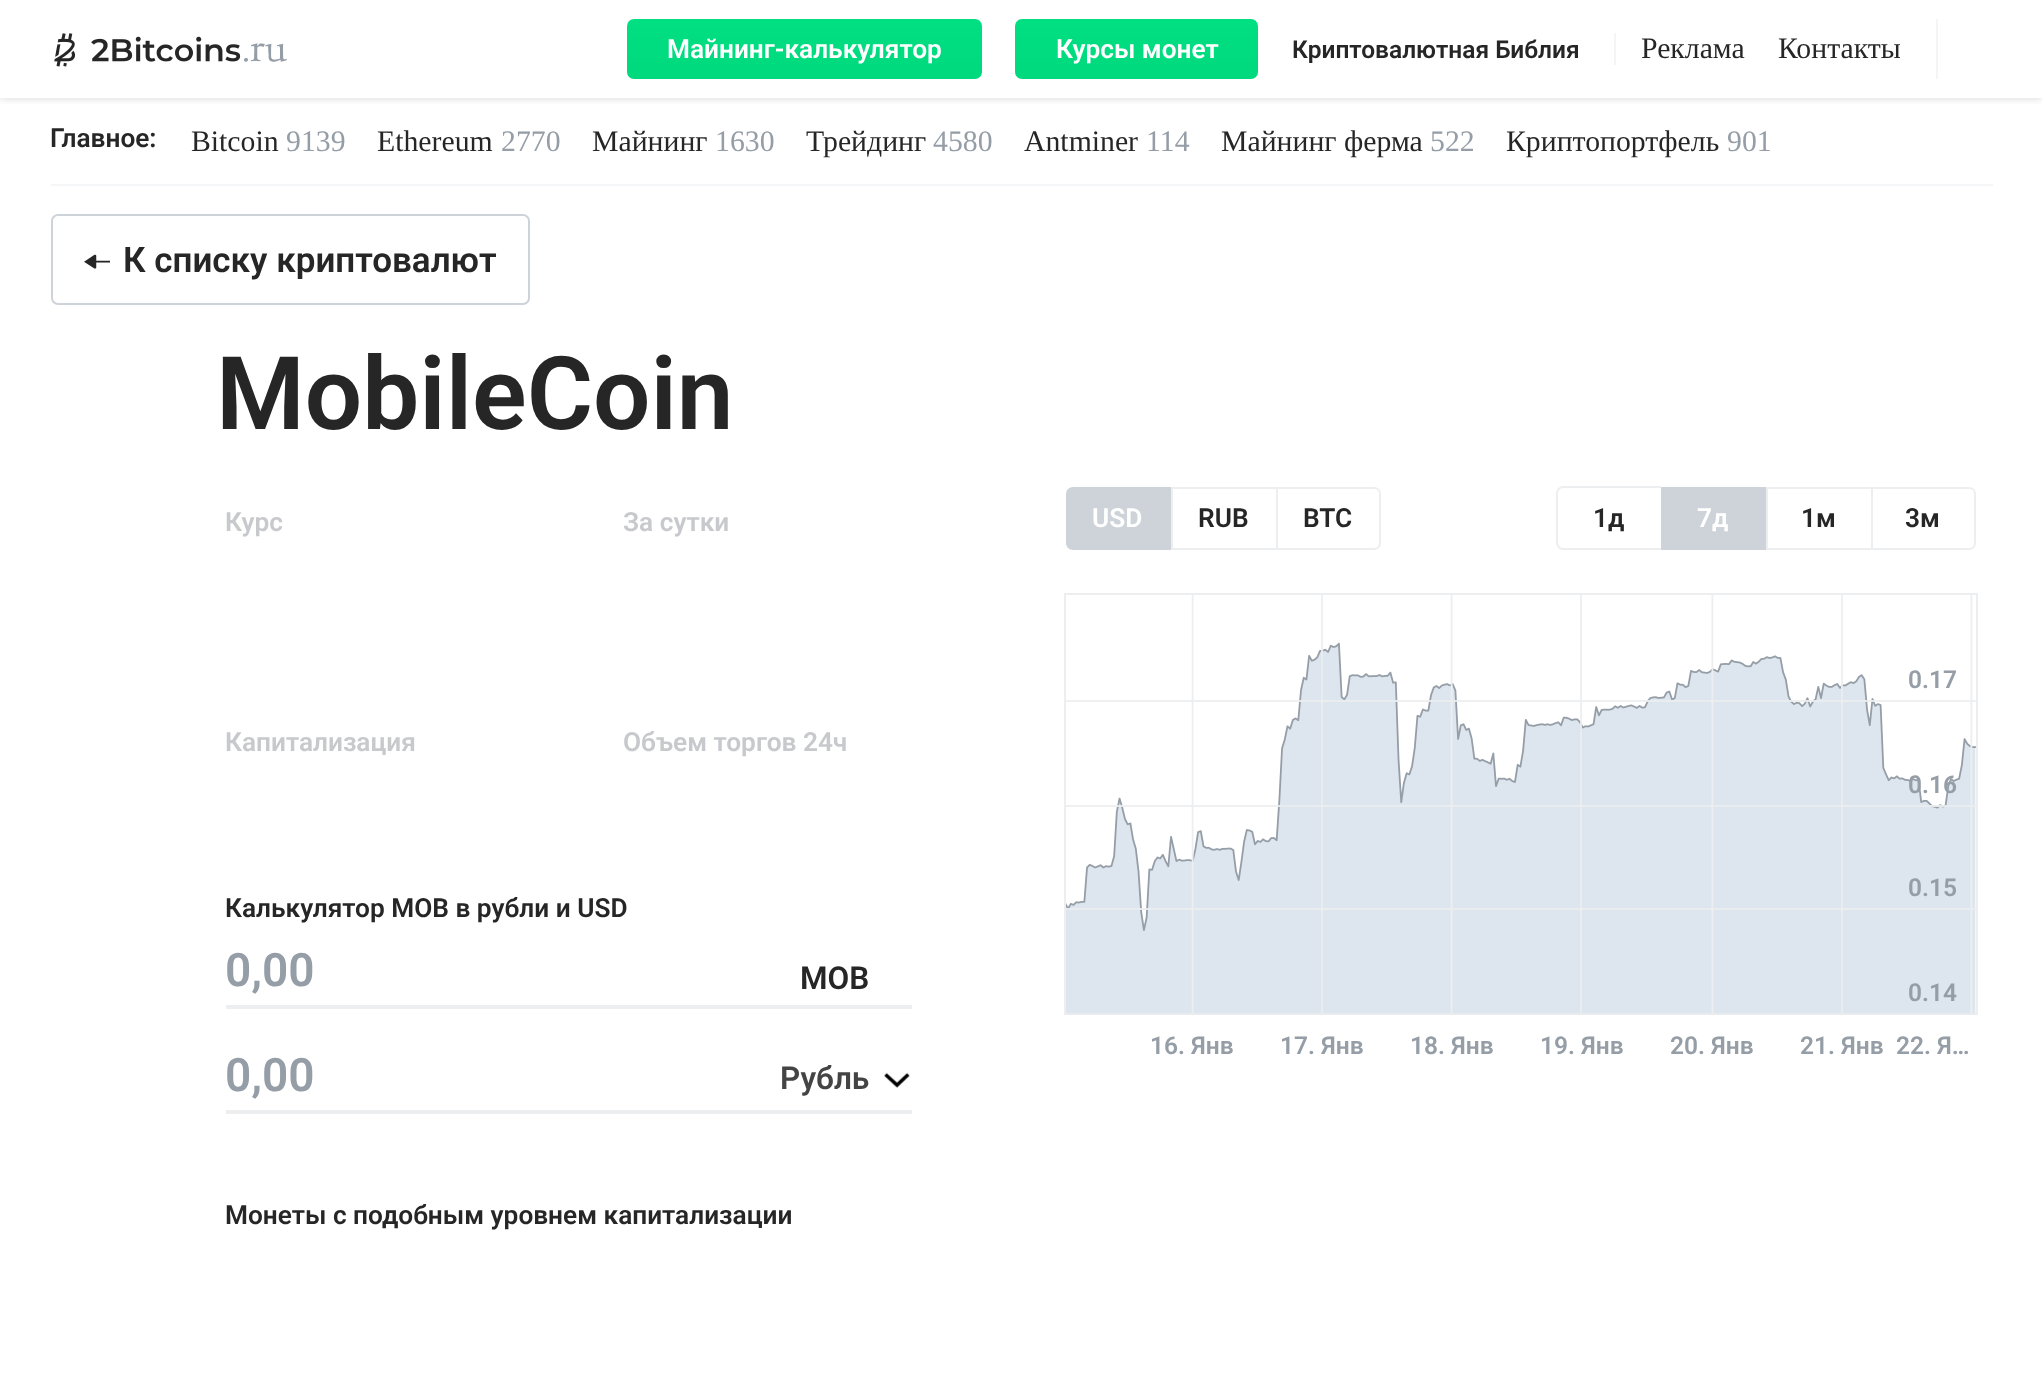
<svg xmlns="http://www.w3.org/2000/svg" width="2042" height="1394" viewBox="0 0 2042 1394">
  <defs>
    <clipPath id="clip1"><path d="M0 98h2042v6H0z"/></clipPath>
    <linearGradient id="g1" gradientUnits="userSpaceOnUse" x1="804" y1="-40" x2="804" y2="79"><stop offset="0" stop-color="#00e686"/><stop offset="1" stop-color="#00d97e"/></linearGradient>
    <linearGradient id="g2" gradientUnits="userSpaceOnUse" x1="1137" y1="-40" x2="1137" y2="79"><stop offset="0" stop-color="#00e686"/><stop offset="1" stop-color="#00d97e"/></linearGradient>
  </defs>
  <rect width="100%" height="100%" fill="#fff"/>
  <g clip-path="url(#clip1)">
    <path d="M0 0h2042v98H0z" fill="#26262633" filter="blur(4.5px)"/>
  </g>
  <image x="54" y="33" width="233" height="34" href="img/1.png"/>
  <rect x="627" y="19" width="355" height="60" rx="7" fill="url(#g1)"/>
  <rect x="1015" y="19" width="243" height="60" rx="7" fill="url(#g2)"/>
  <path d="M1614 33h2v32H1614z" fill="#f4f5f6"/>
  <path d="M1936 19h2v60H1936z" fill="#f4f5f6"/>
  <path d="M51 184h1942v2H51z" fill="#f5f6f7"/>
  <rect x="52" y="215" width="477" height="89" rx="6" fill="none" stroke="#ced3d9" stroke-width="2"/>
  <image x="84" y="254" width="26" height="15" href="img/2.png"/>
  <path d="M226 1005h686v4H226z" fill="#eceeef"/>
  <path d="M226 1110h686v4H226z" fill="#eceeef"/>
  <image x="884" y="1072" width="26" height="16" href="img/3.png"/>
  <path d="M1073 487H1171V550H1073C1069 550 1066 547 1066 543V494C1066 490 1069 487 1073 487Z" fill="#ced3d9"/>
  <path d="M1171 487h105v2H1171z" fill="#eceeef"/>
  <path d="M1171 548h105v2H1171z" fill="#eceeef"/>
  <path d="M1171 487h2v63H1171z" fill="#eceeef"/>
  <path d="M1277 488H1374C1377.5 488 1380 490.5 1380 494V543C1380 546.5 1377.5 549 1374 549H1277Z" fill="none" stroke="#eceeef" stroke-width="2"/>
  <path d="M1563 486H1661V550H1563C1559 550 1556 546 1556 542V494C1556 490 1559 486 1563 486ZM1563 488H1661V548H1563C1560 548 1558 545 1558 542V494C1558 491 1560 488 1563 488Z" fill="#eceeef" fill-rule="evenodd"/>
  <path d="M1661 487h105v63H1661z" fill="#ced3d9"/>
  <path d="M1766 487h105v2H1766z" fill="#eceeef"/>
  <path d="M1766 548h105v2H1766z" fill="#eceeef"/>
  <path d="M1766 487h2v63H1766z" fill="#eceeef"/>
  <path d="M1872 488H1969C1972.5 488 1975 490.5 1975 494V543C1975 546.5 1972.5 549 1969 549H1872Z" fill="none" stroke="#eceeef" stroke-width="2"/>
  <image x="1064" y="593" width="914" height="422" href="img/4.png"/>
  <g font-family="Roboto" font-size="26.25" font-weight="600" fill="#fff">
    <text x="667" y="58">Майнинг-калькулятор</text>
    <text x="1056" y="58">Курсы монет</text>
  </g>
  <text x="1292" y="58" font-family="Roboto" font-size="24.5" font-weight="600" fill="#262626">Криптовалютная Библия</text>
  <g font-family="Liberation Serif" font-size="29.75" fill="#262626">
    <text x="1641" y="58">Реклама</text>
    <text x="1778" y="58">Контакты</text>
  </g>
  <text x="50" y="147" font-family="Roboto" font-size="26.25" font-weight="600" fill="#262626">Главное:</text>
  <text x="191" y="151" font-family="Liberation Serif" font-size="29.75" fill="#262626">Bitcoin</text>
  <text x="286" y="151" font-family="Liberation Serif" font-size="29.75" fill="#959da6">9139</text>
  <text x="377" y="151" font-family="Liberation Serif" font-size="29.75" fill="#262626">Ethereum</text>
  <text x="501" y="151" font-family="Liberation Serif" font-size="29.75" fill="#959da6">2770</text>
  <text x="592" y="151" font-family="Liberation Serif" font-size="29.75" fill="#262626">Майнинг</text>
  <text x="715" y="151" font-family="Liberation Serif" font-size="29.75" fill="#959da6">1630</text>
  <text x="806" y="151" font-family="Liberation Serif" font-size="29.75" fill="#262626">Трейдинг</text>
  <text x="933" y="151" font-family="Liberation Serif" font-size="29.75" fill="#959da6">4580</text>
  <text x="1024" y="151" font-family="Liberation Serif" font-size="29.75" fill="#262626">Antminer</text>
  <text x="1146" y="151" font-family="Liberation Serif" font-size="29.75" fill="#959da6">114</text>
  <text x="1221" y="151" font-family="Liberation Serif" font-size="29.75" fill="#262626">Майнинг ферма</text>
  <text x="1430" y="151" font-family="Liberation Serif" font-size="29.75" fill="#959da6">522</text>
  <text x="1506" y="151" font-family="Liberation Serif" font-size="29.75" fill="#262626">Криптопортфель</text>
  <text x="1727" y="151" font-family="Liberation Serif" font-size="29.75" fill="#959da6">901</text>
  <text x="123" y="272" font-family="Roboto" font-size="35" font-weight="600" fill="#262626">К списку криптовалют</text>
  <text x="216" y="429" font-family="Roboto" font-size="101.5" font-weight="600" fill="#262626">MobileCoin</text>
  <g font-family="Roboto" font-size="26.25" font-weight="600" fill="#c7c9cc">
    <text x="225" y="531">Курс</text>
    <text x="623" y="531">За сутки</text>
    <text x="225" y="751">Капитализация</text>
    <text x="623" y="751">Объем торгов 24ч</text>
  </g>
  <text x="225" y="917" font-family="Roboto" font-size="26.25" font-weight="600" fill="#262626">Калькулятор MOB в рубли и USD</text>
  <text x="225" y="986" font-family="Roboto" font-size="46" font-weight="600" fill="#959da6">0,00</text>
  <text x="800" y="989" font-family="Roboto" font-size="31.5" font-weight="600" fill="#262626">MOB</text>
  <text x="225" y="1091" font-family="Roboto" font-size="46" font-weight="600" fill="#959da6">0,00</text>
  <text x="780" y="1089" font-family="Roboto" font-size="31.5" font-weight="600" fill="#444">Рубль</text>
  <text x="225" y="1224" font-family="Roboto" font-size="26.25" font-weight="600" fill="#262626">Монеты с подобным уровнем капитализации</text>
  <text x="1092" y="527" font-family="Roboto" font-size="26.25" font-weight="600" fill="#fff">USD</text>
  <g font-family="Roboto" font-size="26.25" font-weight="600" fill="#262626">
    <text x="1198" y="527">RUB</text>
    <text x="1303" y="527">BTC</text>
    <text x="1593" y="527">1д</text>
  </g>
  <text x="1697" y="527" font-family="Roboto" font-size="26.25" font-weight="600" fill="#fff">7д</text>
  <g font-family="Roboto" font-size="26.25" font-weight="600" fill="#262626">
    <text x="1801" y="527">1м</text>
    <text x="1905" y="527">3м</text>
  </g>
  <g font-family="Roboto" font-size="24.5" font-weight="600" fill="#959da6">
    <text x="1908" y="688">0.17</text>
    <text x="1908" y="793">0.16</text>
    <text x="1908" y="896">0.15</text>
    <text x="1908" y="1001">0.14</text>
    <text x="1150" y="1054">16. Янв</text>
    <text x="1280" y="1054">17. Янв</text>
    <text x="1410" y="1054">18. Янв</text>
    <text x="1540" y="1054">19. Янв</text>
    <text x="1670" y="1054">20. Янв</text>
    <text x="1800" y="1054">21. Янв</text>
    <text x="1896" y="1054">22. Я…</text>
  </g>
</svg>
